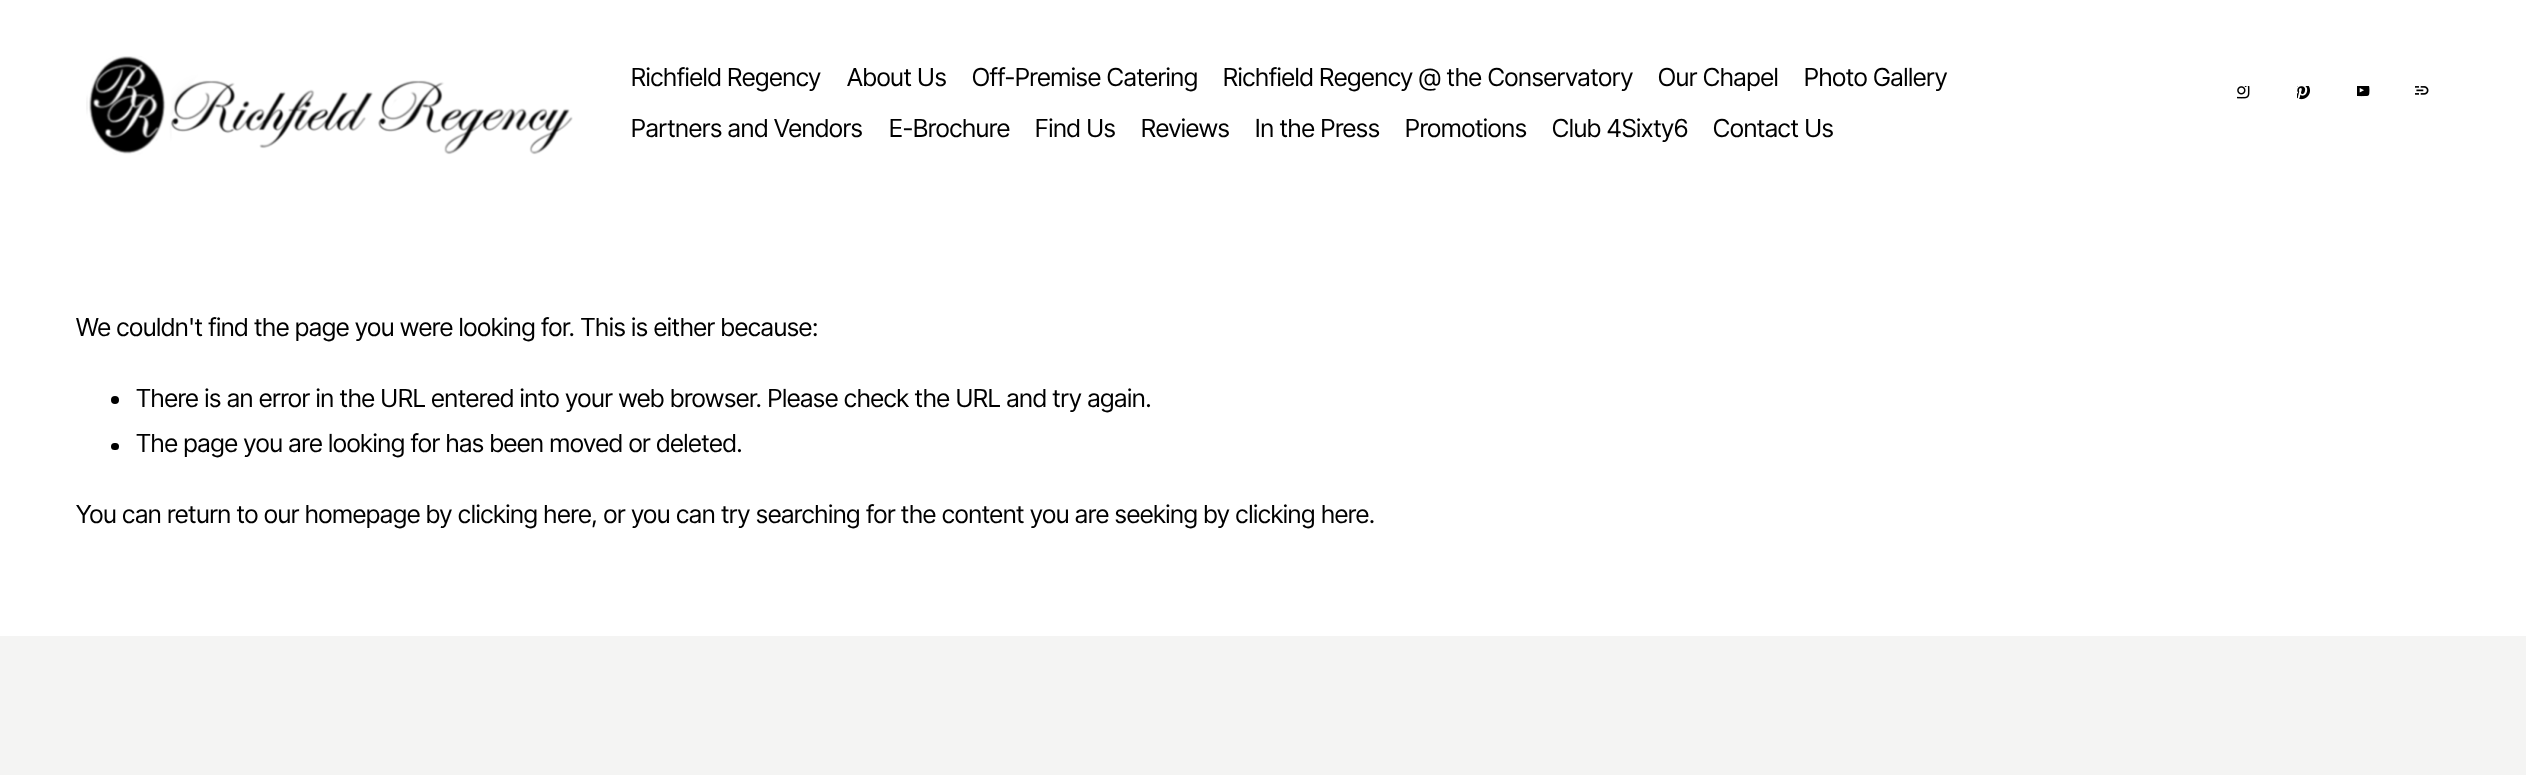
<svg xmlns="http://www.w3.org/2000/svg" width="2526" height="775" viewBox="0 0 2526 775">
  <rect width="100%" height="100%" fill="#fff"/>
  <image x="86" y="56" width="487" height="99" href="img/1.png"/>
  <image x="2237" y="86" width="13" height="13" href="img/2.png"/>
  <image x="2297" y="86" width="13" height="14" href="img/3.png"/>
  <image x="2357" y="86" width="13" height="11" href="img/4.png"/>
  <image x="2415" y="86" width="14" height="9" href="img/5.png"/>
  <circle cx="115" cy="400" r="4" fill="#000"/>
  <rect x="111" y="443" width="8" height="7" rx="3.5" fill="#000"/>
  <path d="M0 636h2526v139H0z" fill="#f4f4f3"/>
  <g font-family="Inter Tight" font-size="24.92" fill="#000">
    <text x="631" y="86">Richfield Regency</text>
    <text x="847" y="86">About Us</text>
    <text x="972" y="86">Off-Premise Catering</text>
    <text x="1223" y="86">Richfield Regency @ the Conservatory</text>
    <text x="1658" y="86">Our Chapel</text>
    <text x="1804" y="86">Photo Gallery</text>
    <text x="631" y="137">Partners and Vendors</text>
    <text x="889" y="137">E-Brochure</text>
    <text x="1035" y="137">Find Us</text>
    <text x="1141" y="137">Reviews</text>
    <text x="1255" y="137">In the Press</text>
    <text x="1405" y="137">Promotions</text>
    <text x="1552" y="137">Club 4Sixty6</text>
    <text x="1713" y="137">Contact Us</text>
    <text x="76" y="336">We couldn't find the page you were looking for. This is either because:</text>
    <text x="136" y="407">There is an error in the URL entered into your web browser. Please check the URL and try again.</text>
    <text x="136" y="452">The page you are looking for has been moved or deleted.</text>
    <text x="76" y="523">You can return to our homepage by clicking here, or you can try searching for the content you are seeking by clicking here.</text>
  </g>
</svg>
